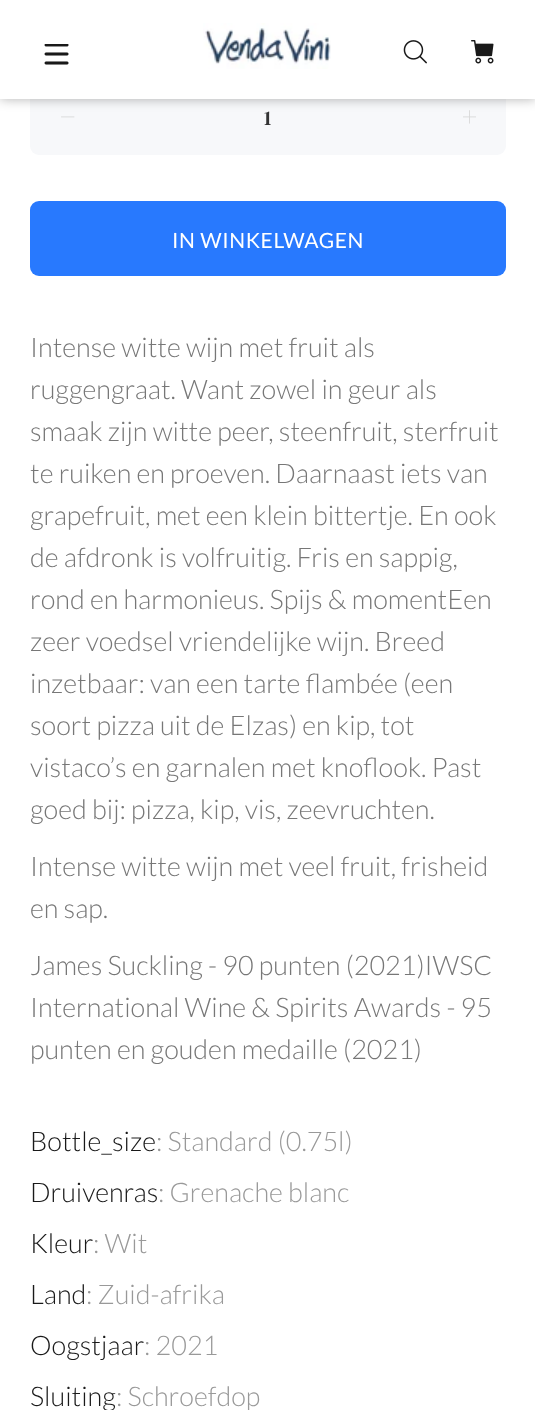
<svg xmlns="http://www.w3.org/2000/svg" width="535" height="1410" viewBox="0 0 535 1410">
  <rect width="100%" height="100%" fill="#fff"/>
  <rect x="30" y="80" width="476" height="75" rx="9" fill="#f7f8fa"/>
  <image x="61" y="116" width="14" height="2" href="img/5.png"/>
  <image x="463" y="110" width="13" height="14" href="img/6.png"/>
  <path d="M0 0h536v99H0z" fill="#0000004d" filter="blur(6px)"/>
  <path d="M0 0h535v99H0z" fill="#fff"/>
  <image x="44" y="44" width="25" height="21" href="img/1.png"/>
  <image x="203" y="23" width="128" height="46" href="img/2.png"/>
  <image x="403" y="40" width="24" height="24" href="img/3.png"/>
  <image x="471" y="40" width="23" height="24" href="img/4.png"/>
  <rect x="30" y="201" width="476" height="75" rx="9" fill="#2879fe"/>
  <text x="264" y="125" font-family="DM Serif Text" font-size="21" fill="#333">1</text>
  <text x="172" y="248" font-family="Lato" font-size="21" letter-spacing="0.6" fill="#fff">IN WINKELWAGEN</text>
  <g font-family="Lato" font-size="27" font-weight="300" fill="#777">
    <text x="30" y="357">Intense witte wijn met fruit als</text>
    <text x="30" y="399">ruggengraat. Want zowel in geur als</text>
    <text x="30" y="441">smaak zijn witte peer, steenfruit, sterfruit</text>
    <text x="30" y="483">te ruiken en proeven. Daarnaast iets van</text>
    <text x="30" y="525">grapefruit, met een klein bittertje. En ook</text>
    <text x="30" y="567">de afdronk is volfruitig. Fris en sappig,</text>
    <text x="30" y="609">rond en harmonieus. Spijs &amp; momentEen</text>
    <text x="30" y="651">zeer voedsel vriendelijke wijn. Breed</text>
    <text x="30" y="693">inzetbaar: van een tarte flambée (een</text>
    <text x="30" y="735">soort pizza uit de Elzas) en kip, tot</text>
    <text x="30" y="777">vistaco’s en garnalen met knoflook. Past</text>
    <text x="30" y="819">goed bij: pizza, kip, vis, zeevruchten.</text>
    <text x="30" y="876">Intense witte wijn met veel fruit, frisheid</text>
    <text x="30" y="918">en sap.</text>
    <text x="30" y="975">James Suckling - 90 punten (2021)IWSC</text>
    <text x="30" y="1017">International Wine &amp; Spirits Awards - 95</text>
    <text x="30" y="1059">punten en gouden medaille (2021)</text>
  </g>
  <text x="30" y="1151" font-family="Lato" font-size="27" font-weight="300" fill="#191919">Bottle_size</text>
  <text x="156" y="1151" font-family="Lato" font-size="27" font-weight="300" fill="#999">: Standard (0.75l)</text>
  <text x="30" y="1202" font-family="Lato" font-size="27" font-weight="300" fill="#191919">Druivenras</text>
  <text x="158" y="1202" font-family="Lato" font-size="27" font-weight="300" fill="#999">: Grenache blanc</text>
  <text x="30" y="1253" font-family="Lato" font-size="27" font-weight="300" fill="#191919">Kleur</text>
  <text x="93" y="1253" font-family="Lato" font-size="27" font-weight="300" fill="#999">: Wit</text>
  <text x="30" y="1304" font-family="Lato" font-size="27" font-weight="300" fill="#191919">Land</text>
  <text x="86" y="1304" font-family="Lato" font-size="27" font-weight="300" fill="#999">: Zuid-afrika</text>
  <text x="30" y="1355" font-family="Lato" font-size="27" font-weight="300" fill="#191919">Oogstjaar</text>
  <text x="144" y="1355" font-family="Lato" font-size="27" font-weight="300" fill="#999">: 2021</text>
  <text x="30" y="1406" font-family="Lato" font-size="27" font-weight="300" fill="#191919">Sluiting</text>
  <text x="116" y="1406" font-family="Lato" font-size="27" font-weight="300" fill="#999">: Schroefdop</text>
</svg>
